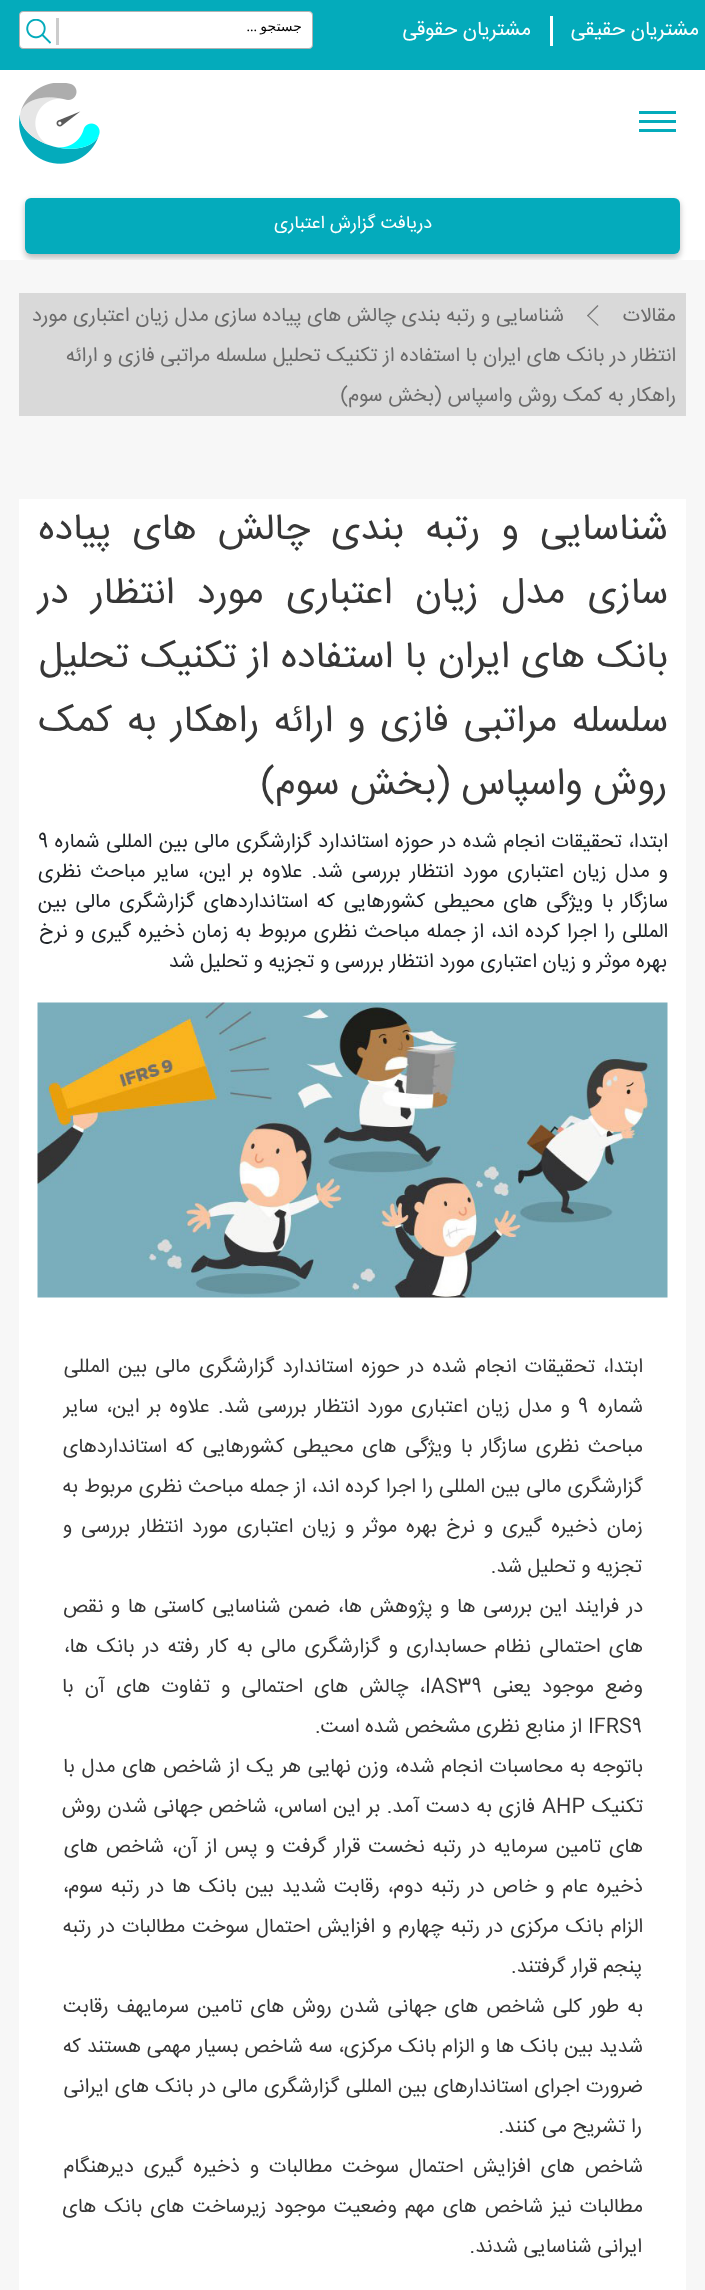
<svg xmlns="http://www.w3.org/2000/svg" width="705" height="2290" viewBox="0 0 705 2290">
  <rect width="100%" height="100%" fill="#fff"/>
  <path d="M0 0h705v70H0z" fill="#04abbb"/>
  <path d="M550 16h3v30H550z" fill="#fff"/>
  <rect x="19.5" y="11.5" width="293" height="37" rx="3.5" fill="#fff" stroke="#b3b3b3"/>
  <image x="26" y="19" width="25" height="25" href="img/1.png"/>
  <path d="M56 18h3v27H56z" fill="#ccc"/>
  <path d="M639 120h37v3H639z" fill="#04abbb"/>
  <path d="M639 111h37v3H639z" fill="#04abbb"/>
  <path d="M639 129h37v3H639z" fill="#04abbb"/>
  <image x="19" y="83" width="81" height="81" href="img/2.png"/>
  <rect x="25" y="201" width="655" height="57" rx="6" fill="#bbb" filter="blur(3px)"/>
  <rect x="25" y="198" width="655" height="56" rx="6" fill="#04abbc"/>
  <path d="M0 260h705v2030H0z" fill="#f7f7f7"/>
  <path d="M19 293h667v123H19z" fill="#d9d9d9"/>
  <path d="M598.5 325L598 326L587 315.5L588 315Z" fill="#777"/>
  <path d="M598.5 306L588 316.5L587 315.5L597.5 305Z" fill="#777"/>
  <path d="M19 499h667v1791H19z" fill="#fff"/>
  <image x="37" y="1002" width="631" height="296" href="img/3.png"/>
  <g font-family="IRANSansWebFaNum" font-size="20" direction="rtl" fill="#fff">
    <text x="699" y="35">مشتریان حقیقی</text>
    <text x="531" y="35">مشتریان حقوقی</text>
  </g>
  <text x="302" y="31" font-family="DejaVu Sans" font-size="14" direction="rtl" fill="#000">جستجو</text>
  <text x="257" y="31" font-family="Liberation Serif" font-size="14" direction="rtl" fill="#000">...</text>
  <text x="432" y="228" font-family="IRANSansWebFaNum" font-size="18" direction="rtl" fill="#fff">دریافت گزارش اعتباری</text>
  <g font-family="IRANSansWebFaNum" font-size="20" direction="rtl" fill="#6b6b6b">
    <text x="676" y="321">مقالات</text>
    <text x="564" y="321">شناسایی و رتبه بندی چالش های پیاده سازی مدل زیان اعتباری مورد</text>
    <text x="676" y="361">انتظار در بانک های ایران با استفاده از تکنیک تحلیل سلسله مراتبی فازی و ارائه</text>
    <text x="676" y="401">راهکار به کمک روش واسپاس (بخش سوم)</text>
  </g>
  <g font-family="IRANSansWebFaNum" font-size="37.5" direction="rtl" fill="#373737">
    <text x="668" y="539" word-spacing="10.75">شناسایی و رتبه بندی چالش های پیاده</text>
    <text x="668" y="603" word-spacing="12.25">سازی مدل زیان اعتباری مورد انتظار در</text>
    <text x="668" y="667" word-spacing="1">بانک های ایران با استفاده از تکنیک تحلیل</text>
    <text x="668" y="731" word-spacing="4.25">سلسله مراتبی فازی و ارائه راهکار به کمک</text>
    <text x="667" y="794">روش واسپاس (بخش سوم)</text>
  </g>
  <text x="668" y="847" word-spacing="1" font-family="IRANSansWebFaNum" font-size="20" direction="rtl" fill="#212529">ابتدا، تحقیقات انجام شده در حوزه استاندارد گزارشگری مالی بین المللی شماره</text>
  <text x="38" y="847" font-family="IRANSansWebFaNum" font-size="20" fill="#212529">9</text>
  <g font-family="IRANSansWebFaNum" font-size="20" direction="rtl" fill="#212529">
    <text x="668" y="877" word-spacing="3.4">و مدل زیان اعتباری مورد انتظار بررسی شد. علاوه بر این، سایر مباحث نظری</text>
    <text x="668" y="907" word-spacing="3.1">سازگار با ویژگی های محیطی کشورهایی که استانداردهای گزارشگری مالی بین</text>
    <text x="668" y="937" word-spacing="1.5">المللی را اجرا کرده اند، از جمله مباحث نظری مربوط به زمان ذخیره گیری و نرخ</text>
    <text x="667" y="967">بهره موثر و زیان اعتباری مورد انتظار بررسی و تجزیه و تحلیل شد</text>
  </g>
  <g font-family="IRANSansWebFaNum" font-size="20" direction="rtl" fill="#373737">
    <text x="643" y="1372" word-spacing="2.75">ابتدا، تحقیقات انجام شده در حوزه استاندارد گزارشگری مالی بین المللی</text>
    <text x="643" y="1412">شماره</text>
  </g>
  <text x="578" y="1412" font-family="IRANSansWebFaNum" font-size="20" fill="#373737">9</text>
  <g font-family="IRANSansWebFaNum" font-size="20" direction="rtl" fill="#373737">
    <text x="570" y="1412" word-spacing="2.75">و مدل زیان اعتباری مورد انتظار بررسی شد. علاوه بر این، سایر</text>
    <text x="643" y="1452" word-spacing="3.1">مباحث نظری سازگار با ویژگی های محیطی کشورهایی که استانداردهای</text>
    <text x="643" y="1492" word-spacing="0.5">گزارشگری مالی بین المللی را اجرا کرده اند، از جمله مباحث نظری مربوط به</text>
    <text x="643" y="1532" word-spacing="3.4">زمان ذخیره گیری و نرخ بهره موثر و زیان اعتباری مورد انتظار بررسی و</text>
    <text x="642" y="1572">تجزیه و تحلیل شد.</text>
    <text x="643" y="1612" word-spacing="1.9">در فرایند این بررسی ها و پژوهش ها، ضمن شناسایی کاستی ها و نقص</text>
    <text x="643" y="1652" word-spacing="2.75">های احتمالی نظام حسابداری و گزارشگری مالی به کار رفته در بانک ها،</text>
    <text x="643" y="1692" word-spacing="5.5">وضع موجود یعنی</text>
  </g>
  <text x="425" y="1692" font-family="IRANSansWebFaNum" font-size="20" fill="#373737">IAS39</text>
  <text x="425" y="1692" word-spacing="5.5" font-family="IRANSansWebFaNum" font-size="20" direction="rtl" fill="#373737">، چالش های احتمالی و تفاوت های آن با</text>
  <text x="588" y="1732" font-family="IRANSansWebFaNum" font-size="20" fill="#373737">IFRS9</text>
  <g font-family="IRANSansWebFaNum" font-size="20" direction="rtl" fill="#373737">
    <text x="582" y="1732">از منابع نظری مشخص شده است.</text>
    <text x="643" y="1772" word-spacing="1.1">باتوجه به محاسبات انجام شده، وزن نهایی هر یک از شاخص های مدل با</text>
    <text x="643" y="1812">تکنیک</text>
  </g>
  <text x="542" y="1812" font-family="IRANSansWebFaNum" font-size="20" fill="#373737">AHP</text>
  <g font-family="IRANSansWebFaNum" font-size="20" direction="rtl" fill="#373737">
    <text x="535" y="1812" word-spacing="0.75">فازی به دست آمد. بر این اساس، شاخص جهانی شدن روش</text>
    <text x="643" y="1852" word-spacing="2.25">های تامین سرمایه در رتبه نخست قرار گرفت و پس از آن، شاخص های</text>
    <text x="643" y="1892" word-spacing="2.4">ذخیره عام و خاص در رتبه دوم، رقابت شدید بین بانک ها در رتبه سوم،</text>
    <text x="643" y="1932" word-spacing="1.4">الزام بانک مرکزی در رتبه چهارم و افزایش احتمال سوخت مطالبات در رتبه</text>
    <text x="642" y="1972">پنجم قرار گرفتند.</text>
    <text x="643" y="2012" word-spacing="2.4">به طور کلی شاخص های جهانی شدن روش های تامین سرمایهف رقابت</text>
    <text x="643" y="2052" word-spacing="0.25">شدید بین بانک ها و الزام بانک مرکزی، سه شاخص بسیار مهمی هستند که</text>
    <text x="643" y="2092" word-spacing="0.75">ضرورت اجرای استاندارهای بین المللی گزارشگری مالی در بانک های ایرانی</text>
    <text x="642" y="2132">را تشریح می کنند.</text>
    <text x="643" y="2172" word-spacing="4.25">شاخص های افزایش احتمال سوخت مطالبات و ذخیره گیری دیرهنگام</text>
    <text x="643" y="2212" word-spacing="2.25">مطالبات نیز شاخص های مهم وضعیت موجود زیرساخت های بانک های</text>
    <text x="642" y="2252">ایرانی شناسایی شدند.</text>
  </g>
</svg>
